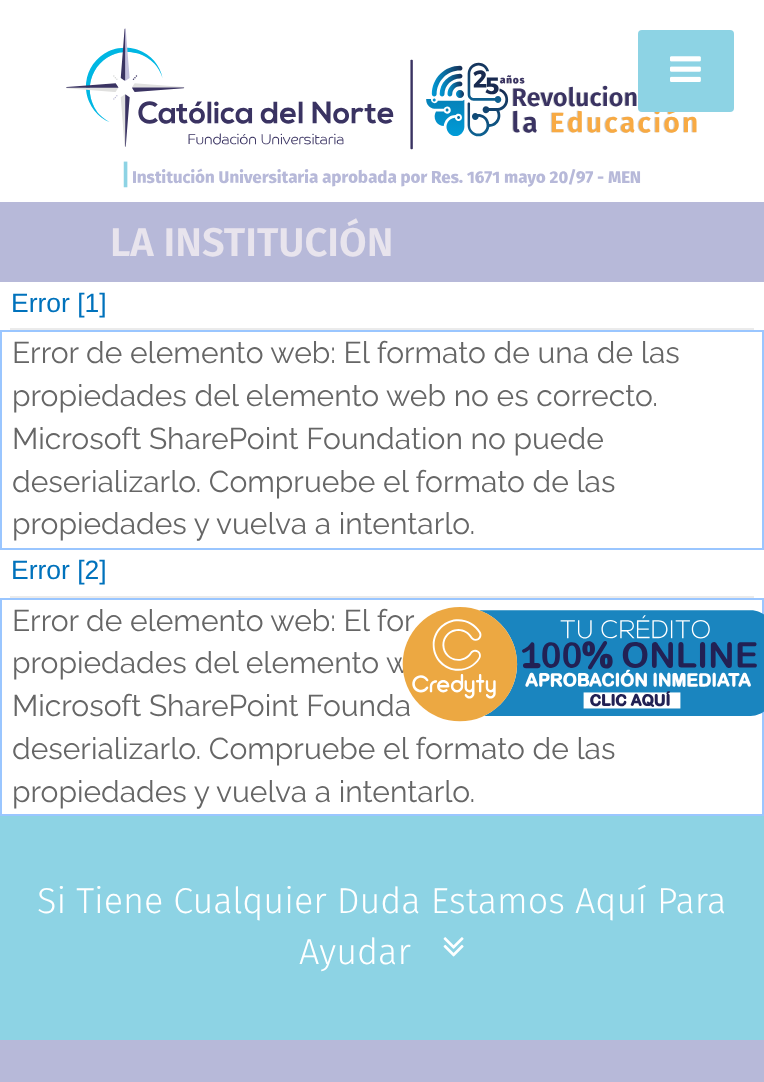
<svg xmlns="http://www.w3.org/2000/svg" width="764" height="1082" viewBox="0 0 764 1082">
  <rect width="100%" height="100%" fill="#fff"/>
  <image x="66" y="28" width="631" height="160" href="img/1.png"/>
  <rect x="638" y="30" width="96" height="82" rx="4" fill="#8dd3e4"/>
  <image x="670" y="56" width="31" height="26" href="img/2.png"/>
  <path d="M0 202h764v80H0z" fill="#b7b9d9"/>
  <path d="M10 328h744v2H10z" fill="#ebebeb"/>
  <path d="M0 330h764v2H0z" fill="#9ac6ff"/>
  <path d="M762 330h2v220H762z" fill="#9ac6ff"/>
  <path d="M0 548h764v2H0z" fill="#9ac6ff"/>
  <path d="M0 330h2v220H0z" fill="#9ac6ff"/>
  <path d="M10 596h744v2H10z" fill="#ebebeb"/>
  <path d="M0 598h764v2H0z" fill="#9ac6ff"/>
  <path d="M762 598h2v218H762z" fill="#9ac6ff"/>
  <path d="M0 814h764v2H0z" fill="#9ac6ff"/>
  <path d="M0 598h2v218H0z" fill="#9ac6ff"/>
  <path d="M0 816h764v224H0z" fill="#8dd3e4"/>
  <image x="443" y="937" width="21" height="20" href="img/3.png"/>
  <path d="M0 1040h764v42H0z" fill="#b7b9d9"/>
  <text x="110" y="256" font-family="Fira Sans" font-size="40" font-weight="600" fill="#e8e4ed">LA INSTITUCIÓN</text>
  <text x="11" y="312" font-family="Liberation Sans" font-size="26.5" fill="#0072bc">Error [1]</text>
  <g font-family="Raleway" font-size="30" fill="#666">
    <text x="12" y="363">Error de elemento web: El formato de una de las</text>
    <text x="12" y="406">propiedades del elemento web no es correcto.</text>
    <text x="12" y="449">Microsoft SharePoint Foundation no puede</text>
    <text x="12" y="492">deserializarlo. Compruebe el formato de las</text>
    <text x="12" y="534">propiedades y vuelva a intentarlo.</text>
  </g>
  <text x="11" y="579" font-family="Liberation Sans" font-size="26.5" fill="#0072bc">Error [2]</text>
  <g font-family="Raleway" font-size="30" fill="#666">
    <text x="12" y="631">Error de elemento web: El for</text>
    <text x="12" y="673">propiedades del elemento w</text>
    <text x="12" y="716">Microsoft SharePoint Founda</text>
    <text x="12" y="759">deserializarlo. Compruebe el formato de las</text>
    <text x="12" y="802">propiedades y vuelva a intentarlo.</text>
  </g>
  <g font-family="Fira Sans" font-size="36" font-weight="300" fill="#fff">
    <text x="37" y="913">Si Tiene Cualquier Duda Estamos Aquí Para</text>
    <text x="299" y="964">Ayudar</text>
  </g>
  <image x="402" y="607" width="362" height="115" href="img/4.png"/>
</svg>
